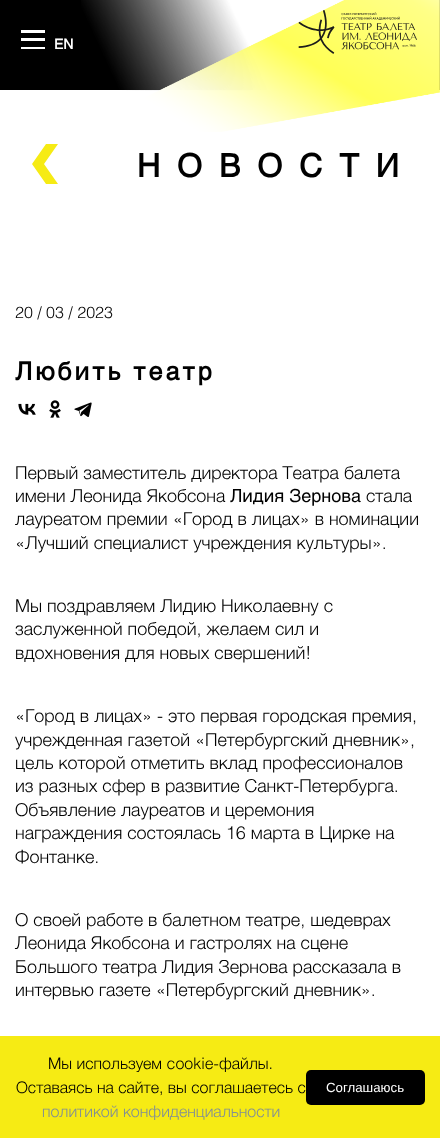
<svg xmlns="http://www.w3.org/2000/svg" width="440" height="1138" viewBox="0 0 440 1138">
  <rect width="100%" height="100%" fill="#000"/>
  <path d="M21 30h24v3H21z" fill="#fff"/>
  <path d="M21 38h24v3H21z" fill="#fff"/>
  <path d="M21 47h24v2H21z" fill="#fff"/>
  <path d="M0 90h440v946H0z" fill="#fff"/>
  <image x="81" y="0" width="359" height="132" href="img/1.png"/>
  <image x="298" y="10" width="119" height="44" href="img/2.png"/>
  <path d="M46 144L32 164L46 184H58L44 164L58 144Z" fill="#f6eb14"/>
  <image x="18" y="403" width="18" height="12" href="img/3.png"/>
  <image x="49" y="400" width="12" height="18" href="img/4.png"/>
  <image x="74" y="402" width="18" height="15" href="img/5.png"/>
  <path d="M0 1036h440v102H0z" fill="#f6eb14"/>
  <rect x="306" y="1070" width="119" height="35" rx="5" fill="#000"/>
  <text x="54" y="49" font-family="Helvetica" font-size="14" font-weight="bold" fill="#fff">EN</text>
  <text x="137" y="177" font-family="Helvetica" font-size="32" font-weight="bold" letter-spacing="17" fill="#000">НОВОСТИ</text>
  <text x="15" y="318" font-family="Helvetica" font-size="16" font-weight="300" fill="#000">20 / 03 / 2023</text>
  <text x="15" y="380" font-family="Helvetica" font-size="25" font-weight="bold" letter-spacing="3" fill="#000">Любить театр</text>
  <g font-family="Helvetica" font-size="18" font-weight="300" fill="#000">
    <text x="15" y="479">Первый заместитель директора Театра балета</text>
    <text x="15" y="502">имени Леонида Якобсона</text>
  </g>
  <text x="230" y="502" font-family="Helvetica" font-size="18" fill="#000">Лидия Зернова</text>
  <g font-family="Helvetica" font-size="18" font-weight="300" fill="#000">
    <text x="366" y="502">стала</text>
    <text x="15" y="525">лауреатом премии «Город в лицах» в номинации</text>
    <text x="15" y="549">«Лучший специалист учреждения культуры».</text>
    <text x="15" y="612">Мы поздравляем Лидию Николаевну с</text>
    <text x="15" y="635">заслуженной победой, желаем сил и</text>
    <text x="15" y="659">вдохновения для новых свершений!</text>
    <text x="15" y="722">«Город в лицах» - это первая городская премия,</text>
    <text x="15" y="746">учрежденная газетой «Петербургский дневник»,</text>
    <text x="15" y="769">цель которой отметить вклад профессионалов</text>
    <text x="15" y="792">из разных сфер в развитие Санкт-Петербурга.</text>
    <text x="15" y="816">Объявление лауреатов и церемония</text>
    <text x="15" y="839">награждения состоялась 16 марта в Цирке на</text>
    <text x="15" y="863">Фонтанке.</text>
    <text x="15" y="926">О своей работе в балетном театре, шедеврах</text>
    <text x="15" y="949">Леонида Якобсона и гастролях на сцене</text>
    <text x="15" y="973">Большого театра Лидия Зернова рассказала в</text>
    <text x="15" y="996">интервью газете «Петербургский дневник».</text>
  </g>
  <g font-family="Helvetica" font-size="16" font-weight="300" fill="#000">
    <text x="48" y="1069">Мы используем cookie-файлы.</text>
    <text x="16" y="1093">Оставаясь на сайте, вы соглашаетесь с</text>
  </g>
  <text x="42" y="1117" font-family="Helvetica" font-size="16" font-weight="300" fill="#828f94">политикой конфиденциальности</text>
  <text x="326" y="1092" font-family="Liberation Sans" font-size="13.25" fill="#fff">Соглашаюсь</text>
</svg>
